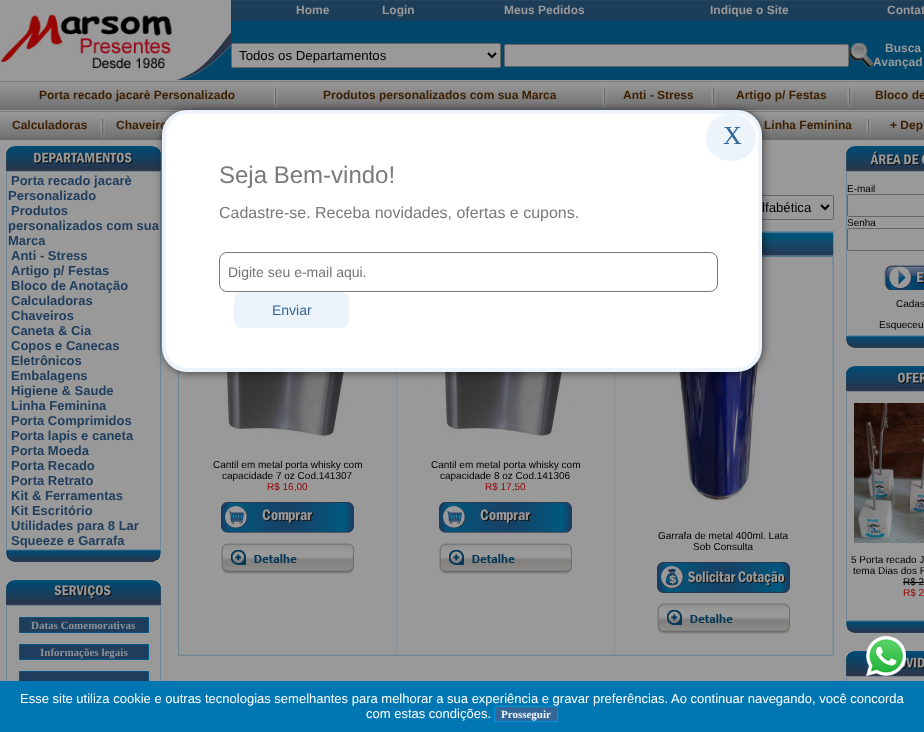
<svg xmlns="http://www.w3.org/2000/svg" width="924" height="732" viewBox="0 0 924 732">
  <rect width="100%" height="100%" fill="#999"/>
  <image x="0" y="14" width="172" height="55" href="img/1.png"/>
  <image x="231" y="0" width="693" height="80" href="img/2.png"/>
  <image x="175" y="0" width="56" height="80" href="img/3.png"/>
  <rect x="231.5" y="43.5" width="269" height="24" rx="1.5" fill="#999" stroke="#656565"/>
  <path d="M488 53L492 57L496 53" fill="none" stroke="#000" stroke-width="2"/>
  <rect x="504.5" y="44.5" width="344" height="22" rx="1.5" fill="#999" stroke="#656565"/>
  <image x="849" y="43" width="24" height="25" href="img/4.png"/>
  <image x="0" y="80" width="273" height="30" href="img/5.png"/>
  <image x="273" y="80" width="5" height="30" href="img/6.png"/>
  <image x="273" y="86" width="5" height="22" href="img/7.png"/>
  <image x="278" y="80" width="324" height="30" href="img/8.png"/>
  <image x="602" y="80" width="5" height="30" href="img/6.png"/>
  <image x="602" y="86" width="5" height="22" href="img/7.png"/>
  <image x="607" y="80" width="104" height="30" href="img/9.png"/>
  <image x="711" y="80" width="5" height="30" href="img/6.png"/>
  <image x="711" y="86" width="5" height="22" href="img/7.png"/>
  <image x="716" y="80" width="131" height="30" href="img/10.png"/>
  <image x="847" y="80" width="5" height="30" href="img/6.png"/>
  <image x="847" y="86" width="5" height="22" href="img/7.png"/>
  <image x="852" y="80" width="72" height="30" href="img/11.png"/>
  <image x="0" y="110" width="100" height="30" href="img/12.png"/>
  <image x="100" y="110" width="5" height="30" href="img/6.png"/>
  <image x="100" y="116" width="5" height="22" href="img/7.png"/>
  <image x="105" y="110" width="79" height="30" href="img/13.png"/>
  <image x="184" y="110" width="3" height="1" href="img/14.png"/>
  <image x="737" y="110" width="8" height="2" href="img/15.png"/>
  <image x="745" y="110" width="5" height="4" href="img/16.png"/>
  <image x="750" y="110" width="116" height="30" href="img/17.png"/>
  <image x="866" y="110" width="5" height="30" href="img/6.png"/>
  <image x="866" y="116" width="5" height="22" href="img/7.png"/>
  <image x="871" y="110" width="53" height="30" href="img/18.png"/>
  <image x="6" y="146" width="155" height="25" href="img/19.png"/>
  <path d="M6.5 171.5h154v378H6.5z" fill="none" stroke="#6e8695"/>
  <rect x="701.5" y="195.5" width="132" height="24" rx="1.5" fill="none" stroke="#656565"/>
  <path d="M178.5 231.5h655v424H178.5z" fill="none" stroke="#6e8695"/>
  <image x="762" y="232" width="71" height="25" href="img/22.png"/>
  <path d="M396.5 259V655" fill="none" stroke="#6e8695" stroke-dasharray="1 1"/>
  <image x="207" y="372" width="146" height="64" href="img/23.png"/>
  <path d="M614.5 259V655" fill="none" stroke="#6e8695" stroke-dasharray="1 1"/>
  <image x="425" y="372" width="146" height="64" href="img/23.png"/>
  <image x="677" y="356" width="83" height="146" href="img/26.png"/>
  <rect x="163" y="111" width="600" height="262" rx="25" fill="#0000008c" filter="blur(4px)"/>
  <image x="6" y="550" width="155" height="12" href="img/20.png"/>
  <image x="6" y="580" width="155" height="25" href="img/21.png"/>
  <path d="M6.5 605.5h154v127H6.5z" fill="none" stroke="#6e8695"/>
  <path d="M19.5 617.5h129v15H19.5z" fill="#1f3d5c" stroke="#005885"/>
  <path d="M19.5 644.5h129v15H19.5z" fill="#1f3d5c" stroke="#005885"/>
  <path d="M20 672h128v9H20z" fill="#1f3d5c"/>
  <path d="M19.5 671.5h129v15H19.5z" fill="none" stroke="#005885"/>
  <path d="M821 205L825 209L829 205" fill="none" stroke="#000" stroke-width="2"/>
  <path d="M179 654.5H397" fill="none" stroke="#6e8695" stroke-dasharray="1 1"/>
  <image x="221" y="502" width="133" height="31" href="img/24.png"/>
  <image x="221" y="543" width="133" height="31" href="img/25.png"/>
  <path d="M397 654.5H615" fill="none" stroke="#6e8695" stroke-dasharray="1 1"/>
  <image x="439" y="502" width="133" height="31" href="img/24.png"/>
  <image x="439" y="543" width="133" height="31" href="img/25.png"/>
  <path d="M832.5 259V655" fill="none" stroke="#6e8695" stroke-dasharray="1 1"/>
  <path d="M615 654.5H833" fill="none" stroke="#6e8695" stroke-dasharray="1 1"/>
  <image x="657" y="562" width="133" height="31" href="img/27.png"/>
  <image x="657" y="603" width="133" height="31" href="img/25.png"/>
  <image x="846" y="146" width="78" height="25" href="img/28.png"/>
  <path d="M846.5 171.5h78v164H846.5z" fill="none" stroke="#6e8695"/>
  <rect x="847.5" y="194.5" width="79" height="22" rx="1.5" fill="none" stroke="#656565"/>
  <rect x="847.5" y="228.5" width="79" height="22" rx="1.5" fill="none" stroke="#656565"/>
  <image x="884" y="265" width="40" height="25" href="img/29.png"/>
  <image x="846" y="336" width="78" height="12" href="img/30.png"/>
  <image x="846" y="366" width="78" height="25" href="img/31.png"/>
  <path d="M846.5 391.5h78v229H846.5z" fill="none" stroke="#6e8695"/>
  <image x="854" y="403" width="70" height="140" href="img/32.png"/>
  <path d="M903 582h21v1H903z" fill="#000"/>
  <image x="846" y="621" width="78" height="12" href="img/30.png"/>
  <image x="846" y="651" width="78" height="25" href="img/33.png"/>
  <path d="M846.5 676.5h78v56H846.5z" fill="none" stroke="#6e8695"/>
  <image x="866" y="636" width="40" height="40" href="img/34.png"/>
  <path d="M0 681h924v51H0z" fill="#0076b2"/>
  <path d="M494.5 706.5h63v15H494.5z" fill="#369" stroke="#0093dd"/>
  <g font-family="Liberation Sans" font-size="12" font-weight="bold" fill="#999">
    <text x="296" y="14">Home</text>
    <text x="382" y="14">Login</text>
    <text x="504" y="14">Meus Pedidos</text>
    <text x="710" y="14">Indique o Site</text>
    <text x="887" y="14">Contat</text>
  </g>
  <text x="239" y="60" font-family="Liberation Sans" font-size="13.25" fill="#000">Todos os Departamentos</text>
  <g font-family="Liberation Sans" font-size="12" font-weight="bold" fill="#999">
    <text x="885" y="52">Busca</text>
    <text x="873" y="66">Avançad</text>
  </g>
  <g font-family="Liberation Sans" font-size="12" font-weight="bold" fill="#3d1f00">
    <text x="39" y="99">Porta recado jacarè Personalizado</text>
    <text x="323" y="99">Produtos personalizados com sua Marca</text>
    <text x="623" y="99">Anti - Stress</text>
    <text x="736" y="99">Artigo p/ Festas</text>
    <text x="875" y="99">Bloco de</text>
    <text x="12" y="129">Calculadoras</text>
    <text x="116" y="129">Chaveiro</text>
    <text x="764" y="129">Linha Feminina</text>
    <text x="890" y="129">+ Dep</text>
  </g>
  <rect x="164" y="112" width="596" height="258" rx="23" fill="#fff" stroke="#ecf3fb" stroke-width="4"/>
  <rect x="706" y="114" width="50" height="47" rx="23.5" fill="#ecf3fb"/>
  <text x="723" y="144" font-family="Liberation Serif" font-size="26" fill="#369">X</text>
  <text x="219" y="183" font-family="Liberation Sans" font-size="24" fill="#7b7a7a">Seja Bem-vindo!</text>
  <text x="219" y="218" font-family="Liberation Sans" font-size="16" fill="#7b7a7a">Cadastre-se. Receba novidades, ofertas e cupons.</text>
  <rect x="219.5" y="252.5" width="498" height="39" rx="7.5" fill="none" stroke="#7b7a7a"/>
  <text x="228" y="277" font-family="Liberation Sans" font-size="14" fill="#757575">Digite seu e-mail aqui.</text>
  <rect x="234" y="292" width="115" height="36" rx="8" fill="#ecf3fb"/>
  <text x="272" y="315" font-family="Liberation Sans" font-size="14" fill="#369">Enviar</text>
  <g font-family="Liberation Sans" font-size="13" font-weight="bold" fill="#1f3d5c">
    <text x="11" y="185">Porta recado jacarè</text>
    <text x="8" y="200">Personalizado</text>
    <text x="11" y="215">Produtos</text>
    <text x="8" y="230">personalizados com sua</text>
    <text x="8" y="245">Marca</text>
    <text x="11" y="260">Anti - Stress</text>
    <text x="11" y="275">Artigo p/ Festas</text>
    <text x="11" y="290">Bloco de Anotação</text>
    <text x="11" y="305">Calculadoras</text>
    <text x="11" y="320">Chaveiros</text>
    <text x="11" y="335">Caneta &amp; Cia</text>
    <text x="11" y="350">Copos e Canecas</text>
    <text x="11" y="365">Eletrônicos</text>
    <text x="11" y="380">Embalagens</text>
    <text x="11" y="395">Higiene &amp; Saude</text>
    <text x="11" y="410">Linha Feminina</text>
    <text x="11" y="425">Porta Comprimidos</text>
    <text x="11" y="440">Porta lapis e caneta</text>
    <text x="11" y="455">Porta Moeda</text>
    <text x="11" y="470">Porta Recado</text>
    <text x="11" y="485">Porta Retrato</text>
    <text x="11" y="500">Kit &amp; Ferramentas</text>
    <text x="11" y="515">Kit Escritório</text>
    <text x="11" y="530">Utilidades para 8 Lar</text>
    <text x="11" y="545">Squeeze e Garrafa</text>
  </g>
  <g font-family="Liberation Serif" font-size="11" font-weight="bold" fill="#8e9297">
    <text x="31" y="629">Datas Comemorativas</text>
    <text x="40" y="656">Informações legais</text>
  </g>
  <text x="762" y="212" font-family="Liberation Sans" font-size="13.25" fill="#000">lfabética</text>
  <g font-family="Liberation Sans" font-size="10" fill="#000">
    <text x="213" y="468">Cantil em metal porta whisky com</text>
    <text x="222" y="479">capacidade 7 oz Cod.141307</text>
  </g>
  <text x="267" y="490" font-family="Liberation Sans" font-size="10" fill="#900">R$ 16,00</text>
  <g font-family="Liberation Sans" font-size="10" fill="#000">
    <text x="431" y="468">Cantil em metal porta whisky com</text>
    <text x="440" y="479">capacidade 8 oz Cod.141306</text>
  </g>
  <text x="485" y="490" font-family="Liberation Sans" font-size="10" fill="#900">R$ 17,50</text>
  <g font-family="Liberation Sans" font-size="10" fill="#000">
    <text x="658" y="539">Garrafa de metal 400ml. Lata</text>
    <text x="693" y="550">Sob Consulta</text>
    <text x="847" y="192">E-mail</text>
    <text x="847" y="226">Senha</text>
    <text x="896" y="307">Cadas</text>
    <text x="879" y="328">Esqueceu</text>
    <text x="851" y="563">5 Porta recado J</text>
    <text x="853" y="574">tema Dias dos P</text>
    <text x="903" y="585">R$ 2</text>
  </g>
  <text x="903" y="596" font-family="Liberation Sans" font-size="10" fill="#900">R$ 2</text>
  <g font-family="Liberation Sans" font-size="13" fill="#fff">
    <text x="20" y="703">Esse site utiliza cookie e outras tecnologias semelhantes para melhorar a sua experiência e gravar preferências. Ao continuar navegando, você concorda</text>
    <text x="366" y="718">com estas condições.</text>
  </g>
  <text x="501" y="718" font-family="Liberation Serif" font-size="11" font-weight="bold" fill="#ecf3fb">Prosseguir</text>
</svg>
